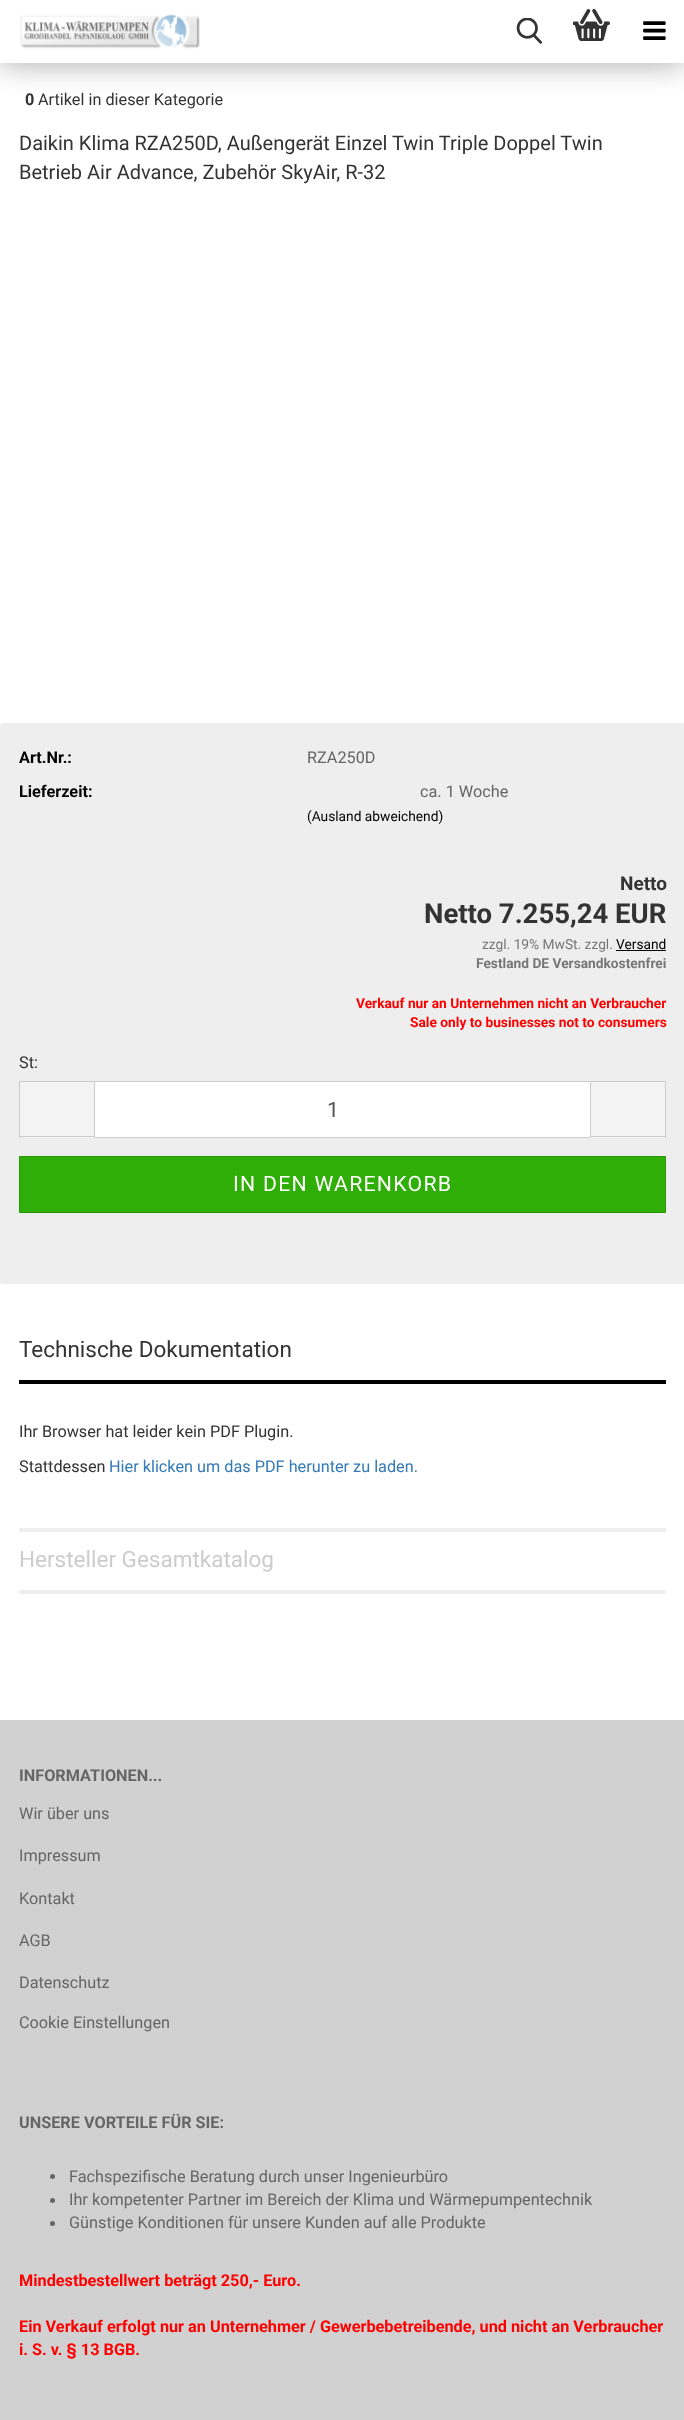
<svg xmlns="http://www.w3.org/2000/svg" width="684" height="2420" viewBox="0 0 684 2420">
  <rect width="100%" height="100%" fill="#fff"/>
  <path d="M0 0h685v63H0z" fill="#00000059" filter="blur(15.5px)"/>
  <path d="M0 0h684v63H0z" fill="#fff"/>
  <image x="20" y="14" width="180" height="35" href="img/1.png"/>
  <image x="516" y="18" width="26" height="26" href="img/2.png"/>
  <image x="573" y="9" width="37" height="32" href="img/3.png"/>
  <image x="643" y="21" width="23" height="19" href="img/4.png"/>
  <rect y="723" width="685" height="561" rx="2.5" fill="#eee"/>
  <path d="M616 950h50v1H616z" fill="#000"/>
  <path d="M20 1082h74v56H20z" fill="#f3f3f3"/>
  <path d="M19 1081h75v1H19z" fill="#ccc"/>
  <path d="M19 1136h75v1H19z" fill="#ccc"/>
  <path d="M19 1081h1v57H19z" fill="#ccc"/>
  <path d="M94.5 1081.5h496v56H94.5z" fill="#fff" stroke="#ccc"/>
  <path d="M591 1082h74v56H591z" fill="#f3f3f3"/>
  <path d="M591 1081h75v1H591z" fill="#ccc"/>
  <path d="M665 1081h1v57H665z" fill="#ccc"/>
  <path d="M591 1136h75v1H591z" fill="#ccc"/>
  <path d="M19.5 1156.5h646v56H19.5z" fill="#2eae06" stroke="#279505"/>
  <path d="M19 1380h647v4H19z" fill="#000"/>
  <path d="M19 1528h647v4H19z" fill="#eee"/>
  <path d="M19 1590h647v4H19z" fill="#eee"/>
  <path d="M0 1720h684v700H0z" fill="#d1d1d1"/>
  <circle cx="52.5" cy="2176.5" r="2.5" fill="#666"/>
  <circle cx="52.5" cy="2200.5" r="2.5" fill="#666"/>
  <circle cx="52.5" cy="2223.5" r="2.5" fill="#666"/>
  <text x="25" y="105" font-family="Roboto" font-size="16.25" font-weight="bold" fill="#333">0</text>
  <text x="38" y="105" font-family="Roboto" font-size="16.25" fill="#333">Artikel in dieser Kategorie</text>
  <g font-family="Roboto" font-size="20" fill="#333">
    <text x="19" y="150">Daikin Klima RZA250D, Außengerät Einzel Twin Triple Doppel Twin</text>
    <text x="19" y="179">Betrieb Air Advance, Zubehör SkyAir, R-32</text>
  </g>
  <text x="19" y="763" font-family="Roboto" font-size="16.25" font-weight="bold" fill="#000">Art.Nr.:</text>
  <text x="307" y="763" font-family="Roboto" font-size="16.25" fill="#666">RZA250D</text>
  <text x="19" y="797" font-family="Roboto" font-size="16.25" font-weight="bold" fill="#000">Lieferzeit:</text>
  <text x="420" y="797" font-family="Roboto" font-size="16.25" fill="#666">ca. 1 Woche</text>
  <text x="307" y="821" font-family="Roboto" font-size="13.75" fill="#000">(Ausland abweichend)</text>
  <text x="620" y="890" font-family="Roboto" font-size="19" font-weight="bold" fill="#333">Netto</text>
  <text x="424" y="923" font-family="Roboto" font-size="27.5" font-weight="bold" fill="#333">Netto 7.255,24 EUR</text>
  <text x="482" y="949" font-family="Roboto" font-size="13.75" fill="#777">zzgl. 19% MwSt. zzgl.</text>
  <text x="616" y="949" font-family="Roboto" font-size="13.75" fill="#000">Versand</text>
  <text x="476" y="968" font-family="Roboto" font-size="13.75" font-weight="bold" fill="#777">Festland DE Versandkostenfrei</text>
  <g font-family="Roboto" font-size="13.75" font-weight="bold" fill="#f00">
    <text x="356" y="1008">Verkauf nur an Unternehmen nicht an Verbraucher</text>
    <text x="410" y="1027">Sale only to businesses not to consumers</text>
  </g>
  <text x="19" y="1068" font-family="Roboto" font-size="16.25" fill="#333">St:</text>
  <text x="327" y="1117" font-family="Roboto" font-size="21.25" fill="#555">1</text>
  <text x="233" y="1191" font-family="Roboto" font-size="21.25" letter-spacing="1.25" fill="#fff">IN DEN WARENKORB</text>
  <text x="19" y="1357" font-family="Roboto" font-size="22.5" fill="#333">Technische Dokumentation</text>
  <g font-family="Roboto" font-size="16.25" fill="#333">
    <text x="19" y="1437">Ihr Browser hat leider kein PDF Plugin.</text>
    <text x="19" y="1472">Stattdessen</text>
  </g>
  <text x="109" y="1472" font-family="Roboto" font-size="16.25" fill="#337ab7">Hier klicken um das PDF herunter zu laden.</text>
  <text x="19" y="1567" font-family="Roboto" font-size="22.5" fill="#ccc">Hersteller Gesamtkatalog</text>
  <text x="19" y="1781" font-family="Roboto" font-size="16.25" font-weight="bold" fill="#666">INFORMATIONEN...</text>
  <g font-family="Roboto" font-size="16.25" fill="#666">
    <text x="19" y="1819">Wir über uns</text>
    <text x="19" y="1861">Impressum</text>
    <text x="19" y="1904">Kontakt</text>
    <text x="19" y="1946">AGB</text>
    <text x="19" y="1988">Datenschutz</text>
    <text x="19" y="2028">Cookie Einstellungen</text>
  </g>
  <text x="19" y="2128" font-family="Roboto" font-size="16.25" font-weight="bold" fill="#666">UNSERE VORTEILE FÜR SIE:</text>
  <g font-family="Roboto" font-size="16.25" fill="#666">
    <text x="69" y="2182">Fachspezifische Beratung durch unser Ingenieurbüro</text>
    <text x="69" y="2205">Ihr kompetenter Partner im Bereich der Klima und Wärmepumpentechnik</text>
    <text x="69" y="2228">Günstige Konditionen für unsere Kunden auf alle Produkte</text>
  </g>
  <g font-family="Roboto" font-size="16.25" font-weight="bold" fill="#f00">
    <text x="19" y="2286">Mindestbestellwert beträgt 250,- Euro.</text>
    <text x="19" y="2332">Ein Verkauf erfolgt nur an Unternehmer / Gewerbebetreibende, und nicht an Verbraucher</text>
    <text x="19" y="2355">i. S. v. § 13 BGB.</text>
  </g>
</svg>
